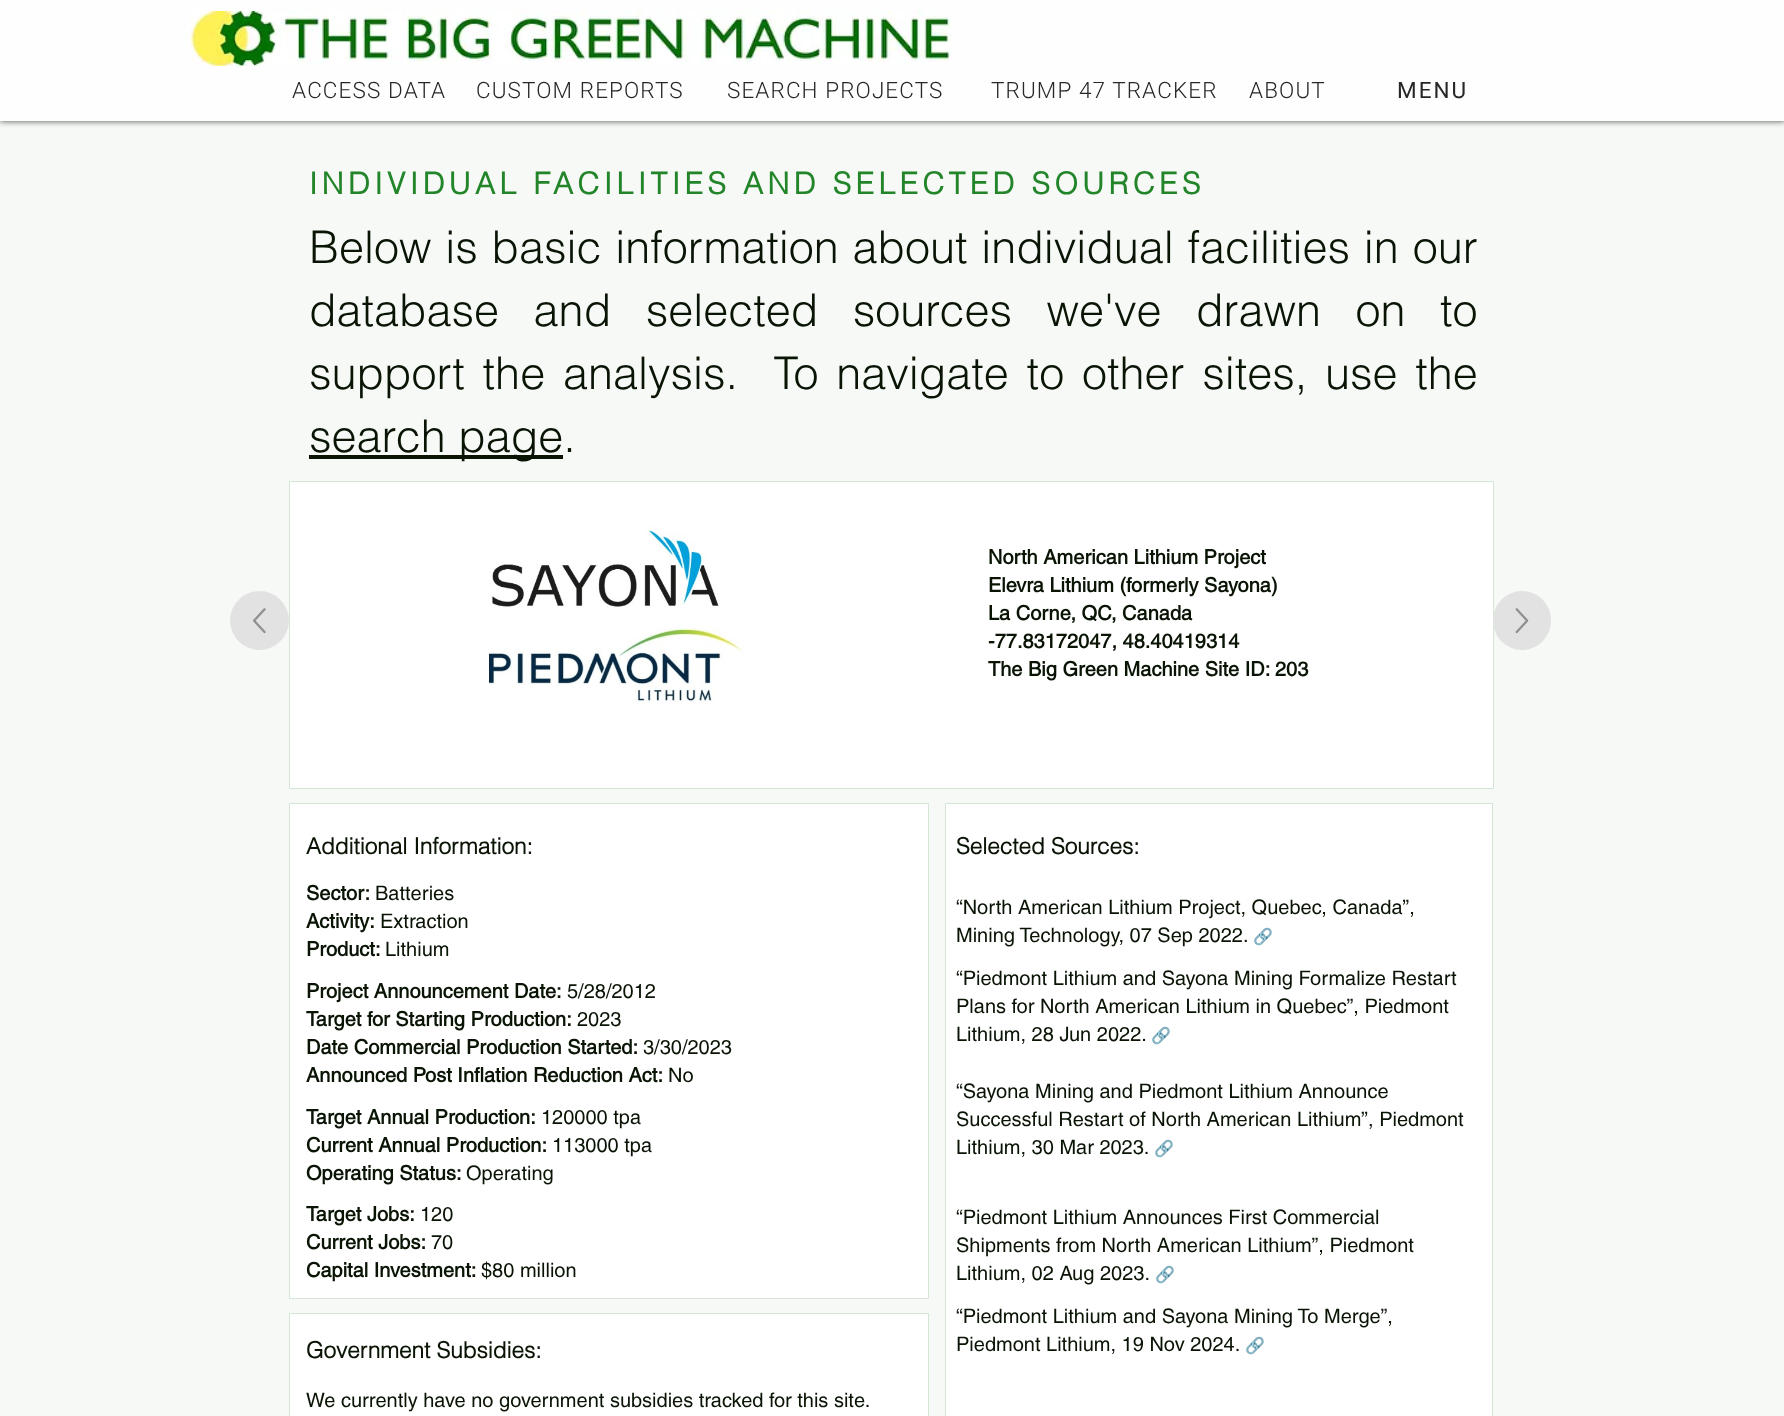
<svg xmlns="http://www.w3.org/2000/svg" width="1784" height="1416" viewBox="0 0 1784 1416">
  <rect width="100%" height="100%" fill="#f6f9f5"/>
  <path d="M0 0h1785v121H0z" fill="#000000b3" filter="blur(3px)"/>
  <path d="M0 0h1784v121H0z" fill="#fefefe"/>
  <image x="191" y="11" width="761" height="55" href="img/1.png"/>
  <path d="M309 455h254v4H309z" fill="#091405"/>
  <circle cx="259.5" cy="620.5" r="29.5" fill="#e2e2e2"/>
  <image x="253" y="608" width="13" height="26" href="img/2.png"/>
  <path d="M289.5 481.5h1204v307H289.5z" fill="#fff" stroke="#d3e7d4"/>
  <image x="489" y="525" width="255" height="178" href="img/3.png"/>
  <rect x="1493" y="591" width="58" height="59" rx="29" fill="#e2e2e2"/>
  <image x="1515" y="608" width="14" height="26" href="img/4.png"/>
  <path d="M289.5 803.5h639v495H289.5z" fill="#fff" stroke="#d3e7d4"/>
  <path d="M289.5 1313.5h639v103H289.5z" fill="#fff" stroke="#d3e7d4"/>
  <path d="M945.5 803.5h547v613H945.5z" fill="#fff" stroke="#d3e7d4"/>
  <g font-family="Heebo" font-size="22.5" font-weight="300" letter-spacing="1.1" fill="#282626">
    <text x="292" y="98">ACCESS DATA</text>
    <text x="476" y="98">CUSTOM REPORTS</text>
    <text x="727" y="98">SEARCH PROJECTS</text>
    <text x="991" y="98">TRUMP 47 TRACKER</text>
    <text x="1249" y="98">ABOUT</text>
  </g>
  <text x="1397" y="98" font-family="Heebo" font-size="22.5" letter-spacing="2" fill="#282626">MENU</text>
  <text x="309" y="194" font-family="helvetica" font-size="30" font-weight="bold" letter-spacing="4.5" fill="#23852a">INDIVIDUAL FACILITIES AND SELECTED SOURCES</text>
  <g font-family="helvetica" font-size="45" font-weight="300" fill="#091405">
    <text x="309" y="263" word-spacing="1.25">Below is basic information about individual facilities in our</text>
    <text x="309" y="326" word-spacing="22">database and selected sources we've drawn on to</text>
    <text x="309" y="389" word-spacing="5.25" xml:space="preserve">support the analysis.  To navigate to other sites, use the</text>
    <text x="309" y="452">search page.</text>
  </g>
  <g font-family="'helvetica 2'" font-size="20" font-weight="bold" fill="#091405">
    <text x="988" y="564">North American Lithium Project</text>
    <text x="988" y="592">Elevra Lithium (formerly Sayona)</text>
    <text x="988" y="620">La Corne, QC, Canada</text>
    <text x="988" y="648">-77.83172047, 48.40419314</text>
    <text x="988" y="676">The Big Green Machine Site ID: 203</text>
  </g>
  <text x="306" y="854" font-family="helvetica" font-size="22.5" font-weight="bold" fill="#091405">Additional Information:</text>
  <text x="306" y="900" font-family="'helvetica 2'" font-size="20" font-weight="bold" fill="#091405">Sector:</text>
  <text x="375" y="900" font-family="helvetica" font-size="20" fill="#091405">Batteries</text>
  <text x="306" y="928" font-family="'helvetica 2'" font-size="20" font-weight="bold" fill="#091405">Activity:</text>
  <text x="380" y="928" font-family="helvetica" font-size="20" fill="#091405">Extraction</text>
  <text x="306" y="956" font-family="'helvetica 2'" font-size="20" font-weight="bold" fill="#091405">Product:</text>
  <text x="385" y="956" font-family="helvetica" font-size="20" fill="#091405">Lithium</text>
  <text x="306" y="998" font-family="'helvetica 2'" font-size="20" font-weight="bold" fill="#091405">Project Announcement Date:</text>
  <text x="567" y="998" font-family="helvetica" font-size="20" fill="#091405">5/28/2012</text>
  <text x="306" y="1026" font-family="'helvetica 2'" font-size="20" font-weight="bold" fill="#091405">Target for Starting Production:</text>
  <text x="577" y="1026" font-family="helvetica" font-size="20" fill="#091405">2023</text>
  <text x="306" y="1054" font-family="'helvetica 2'" font-size="20" font-weight="bold" fill="#091405">Date Commercial Production Started:</text>
  <text x="643" y="1054" font-family="helvetica" font-size="20" fill="#091405">3/30/2023</text>
  <text x="306" y="1082" font-family="'helvetica 2'" font-size="20" font-weight="bold" fill="#091405">Announced Post Inflation Reduction Act:</text>
  <text x="668" y="1082" font-family="helvetica" font-size="20" fill="#091405">No</text>
  <text x="306" y="1124" font-family="'helvetica 2'" font-size="20" font-weight="bold" fill="#091405">Target Annual Production:</text>
  <text x="541" y="1124" font-family="helvetica" font-size="20" fill="#091405">120000 tpa</text>
  <text x="306" y="1152" font-family="'helvetica 2'" font-size="20" font-weight="bold" fill="#091405">Current Annual Production:</text>
  <text x="552" y="1152" font-family="helvetica" font-size="20" fill="#091405">113000 tpa</text>
  <text x="306" y="1180" font-family="'helvetica 2'" font-size="20" font-weight="bold" fill="#091405">Operating Status:</text>
  <text x="466" y="1180" font-family="helvetica" font-size="20" fill="#091405">Operating</text>
  <text x="306" y="1221" font-family="'helvetica 2'" font-size="20" font-weight="bold" fill="#091405">Target Jobs:</text>
  <text x="420" y="1221" font-family="helvetica" font-size="20" fill="#091405">120</text>
  <text x="306" y="1249" font-family="'helvetica 2'" font-size="20" font-weight="bold" fill="#091405">Current Jobs:</text>
  <text x="431" y="1249" font-family="helvetica" font-size="20" fill="#091405">70</text>
  <text x="306" y="1277" font-family="'helvetica 2'" font-size="20" font-weight="bold" fill="#091405">Capital Investment:</text>
  <text x="481" y="1277" font-family="helvetica" font-size="20" fill="#091405">$80 million</text>
  <text x="306" y="1358" font-family="helvetica" font-size="22.5" font-weight="bold" fill="#091405">Government Subsidies:</text>
  <text x="306" y="1407" font-family="helvetica" font-size="20" fill="#091405">We currently have no government subsidies tracked for this site.</text>
  <text x="956" y="854" font-family="helvetica" font-size="22.5" font-weight="bold" fill="#091405">Selected Sources:</text>
  <g font-family="helvetica" font-size="20" fill="#091405">
    <text x="956" y="914">“North American Lithium Project, Quebec, Canada”,</text>
    <text x="956" y="942">Mining Technology, 07 Sep 2022.</text>
  </g>
  <text x="1253" y="942" font-family="Noto Color Emoji" font-size="16" fill="#091405">🔗</text>
  <g font-family="helvetica" font-size="20" fill="#091405">
    <text x="956" y="985">“Piedmont Lithium and Sayona Mining Formalize Restart</text>
    <text x="956" y="1013">Plans for North American Lithium in Quebec”, Piedmont</text>
    <text x="956" y="1041">Lithium, 28 Jun 2022.</text>
  </g>
  <text x="1151" y="1041" font-family="Noto Color Emoji" font-size="16" fill="#091405">🔗</text>
  <g font-family="helvetica" font-size="20" fill="#091405">
    <text x="956" y="1098">“Sayona Mining and Piedmont Lithium Announce</text>
    <text x="956" y="1126">Successful Restart of North American Lithium”, Piedmont</text>
    <text x="956" y="1154">Lithium, 30 Mar 2023.</text>
  </g>
  <text x="1154" y="1154" font-family="Noto Color Emoji" font-size="16" fill="#091405">🔗</text>
  <g font-family="helvetica" font-size="20" fill="#091405">
    <text x="956" y="1224">“Piedmont Lithium Announces First Commercial</text>
    <text x="956" y="1252">Shipments from North American Lithium”, Piedmont</text>
    <text x="956" y="1280">Lithium, 02 Aug 2023.</text>
  </g>
  <text x="1155" y="1280" font-family="Noto Color Emoji" font-size="16" fill="#091405">🔗</text>
  <g font-family="helvetica" font-size="20" fill="#091405">
    <text x="956" y="1323">“Piedmont Lithium and Sayona Mining To Merge”,</text>
    <text x="956" y="1351">Piedmont Lithium, 19 Nov 2024.</text>
  </g>
  <text x="1245" y="1351" font-family="Noto Color Emoji" font-size="16" fill="#091405">🔗</text>
</svg>
